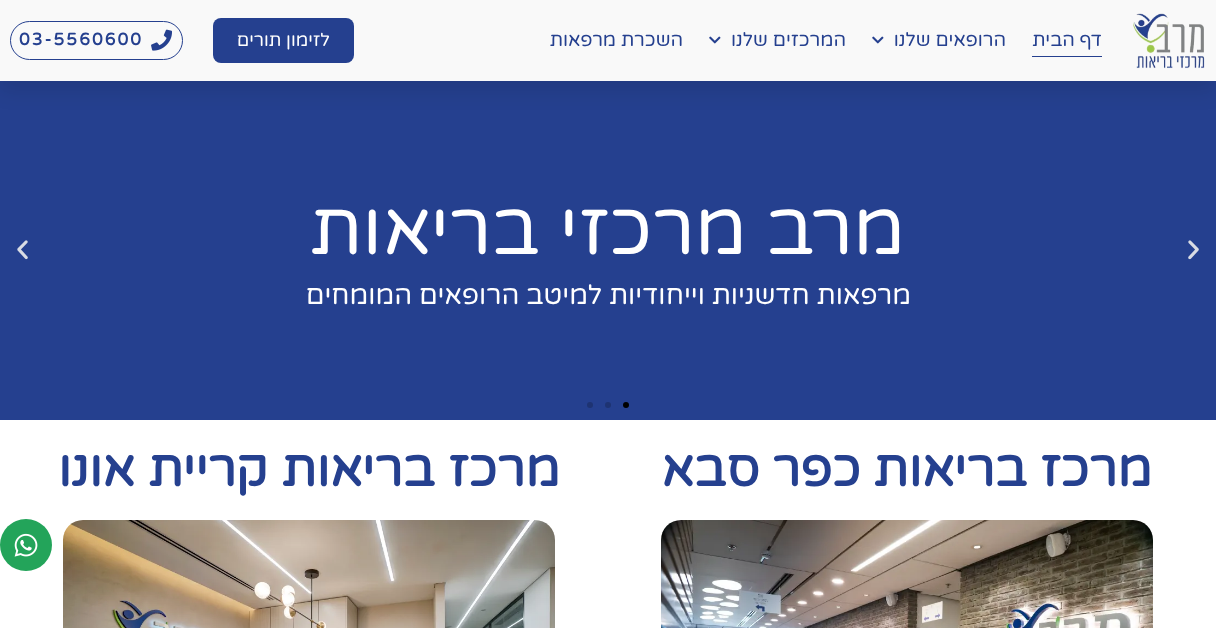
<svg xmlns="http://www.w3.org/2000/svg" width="1216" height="628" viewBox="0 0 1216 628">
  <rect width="100%" height="100%" fill="#fff"/>
  <path d="M0 81h1216v339H0z" fill="#25408f"/>
  <path d="M0 10h1216v81H0z" fill="#0000001a" filter="blur(10px)"/>
  <path d="M0 0h1216v81H0z" fill="#f9f9f9"/>
  <image x="1133" y="13" width="72" height="56" href="img/1.png"/>
  <path d="M1032 56h70v1H1032z" fill="#25408f"/>
  <image x="872" y="36" width="12" height="8" href="img/2.png"/>
  <image x="709" y="36" width="12" height="8" href="img/2.png"/>
  <rect x="213" y="18" width="141" height="45" rx="8" fill="#25408f"/>
  <rect x="10.5" y="21.5" width="172" height="38" rx="19" fill="none" stroke="#25408f"/>
  <image x="151" y="29" width="21" height="22" href="img/3.png"/>
  <image x="1188" y="240" width="11" height="20" href="img/4.png"/>
  <image x="17" y="240" width="11" height="20" href="img/5.png"/>
  <circle cx="626" cy="405" r="3" fill="#000"/>
  <circle cx="608" cy="405" r="3" fill="#1e3372"/>
  <circle cx="590" cy="405" r="3" fill="#1e3372"/>
  <image x="661" y="520" width="492" height="108" href="img/6.png"/>
  <image x="63" y="520" width="492" height="108" href="img/7.png"/>
  <circle cx="26" cy="545" r="26" fill="#23a45a"/>
  <image x="14" y="533" width="24" height="24" href="img/8.png"/>
  <g font-family="Varela Round" font-size="19" direction="rtl" fill="#25408f">
    <text x="1102" y="46">דף הבית</text>
    <text x="1006" y="46">הרופאים שלנו</text>
    <text x="846" y="46">המרכזים שלנו</text>
    <text x="683" y="46">השכרת מרפאות</text>
  </g>
  <text x="330" y="46" font-family="Varela Round" font-size="18" direction="rtl" fill="#fff">לזימון תורים</text>
  <text x="19" y="45" font-family="Varela Round" font-size="17" font-weight="bold" letter-spacing="2.1" fill="#25408f">03-5560600</text>
  <text x="905" y="254" font-family="Varela Round" font-size="75" direction="rtl" fill="#fff">מרב מרכזי בריאות</text>
  <text x="911" y="304" font-family="Varela Round" font-size="27" direction="rtl" fill="#fff">מרפאות חדשניות וייחודיות למיטב הרופאים המומחים</text>
  <g font-family="Varela Round" font-size="50" font-weight="bold" direction="rtl" fill="#25408f">
    <text x="1152" y="486">מרכז בריאות כפר סבא</text>
    <text x="560" y="486">מרכז בריאות</text>
    <text x="268" y="486">קריית אונו</text>
  </g>
</svg>
